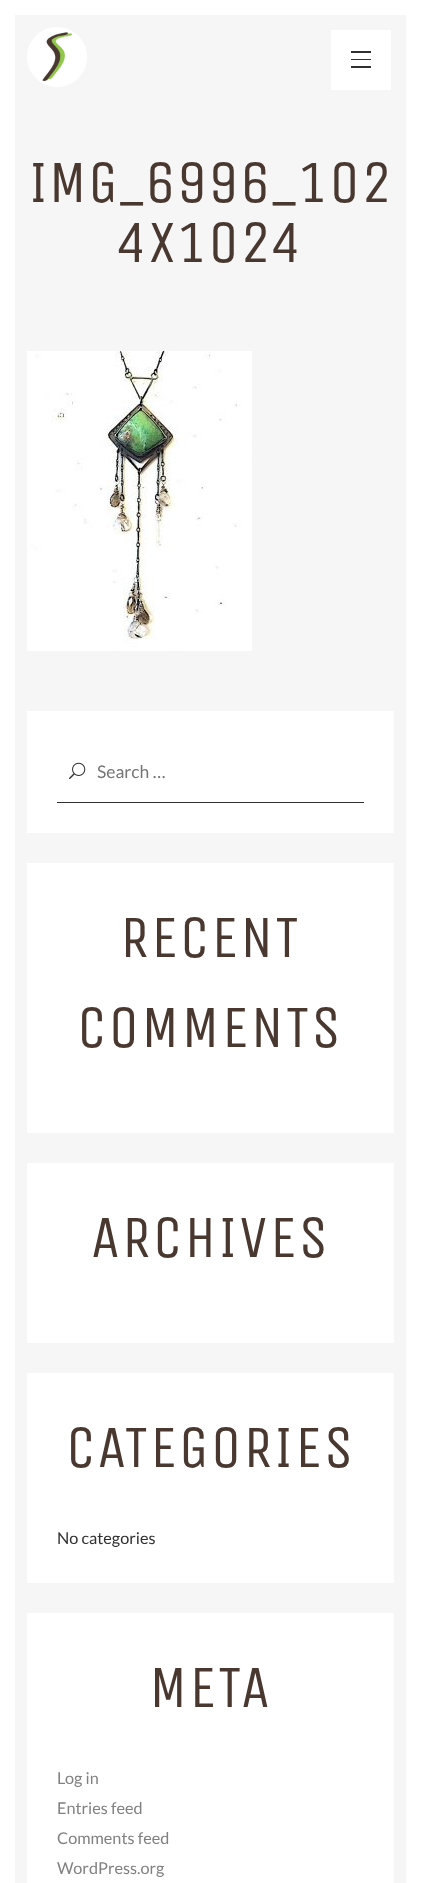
<svg xmlns="http://www.w3.org/2000/svg" width="421" height="1883" viewBox="0 0 421 1883">
  <rect width="100%" height="100%" fill="#f6f6f6"/>
  <path d="M7.5 7.5h406v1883H7.5z" fill="none" stroke="#fff" stroke-width="15"/>
  <image x="27" y="27" width="60" height="60" href="img/1.png"/>
  <path d="M331 30h60v60H331z" fill="#fff"/>
  <path d="M351 59h20v1H351z" fill="#303030"/>
  <path d="M351 51h20v2H351z" fill="#303030"/>
  <path d="M351 66h20v2H351z" fill="#303030"/>
  <image x="27" y="351" width="225" height="300" href="img/2.png"/>
  <path d="M27 711h367v122H27z" fill="#fff"/>
  <path d="M57 802h307v1H57z" fill="#303030"/>
  <image x="69" y="762" width="17" height="17" href="img/3.png"/>
  <path d="M27 863h367v270H27z" fill="#fff"/>
  <path d="M27 1163h367v180H27z" fill="#fff"/>
  <path d="M27 1373h367v210H27z" fill="#fff"/>
  <path d="M27 1613h367v270H27z" fill="#fff"/>
  <g font-family="Unica One" font-size="60" letter-spacing="1" fill="#493830">
    <text x="29" y="202">IMG_6996_102</text>
    <text x="117" y="262">4X1024</text>
  </g>
  <text x="97" y="778" font-family="Lato" font-size="17.5" fill="#757575">Search …</text>
  <g font-family="Unica One" font-size="60" letter-spacing="2" fill="#493830">
    <text x="120" y="957">RECENT</text>
    <text x="77" y="1047">COMMENTS</text>
    <text x="91" y="1257">ARCHIVES</text>
    <text x="66" y="1467">CATEGORIES</text>
  </g>
  <text x="57" y="1544" font-family="Lato" font-size="16.25" fill="#303030">No categories</text>
  <text x="149" y="1707" font-family="Unica One" font-size="60" letter-spacing="2" fill="#493830">META</text>
  <g font-family="Lato" font-size="16.25" fill="#818181">
    <text x="57" y="1784">Log in</text>
    <text x="57" y="1814">Entries feed</text>
    <text x="57" y="1844">Comments feed</text>
    <text x="57" y="1874">WordPress.org</text>
  </g>
</svg>
